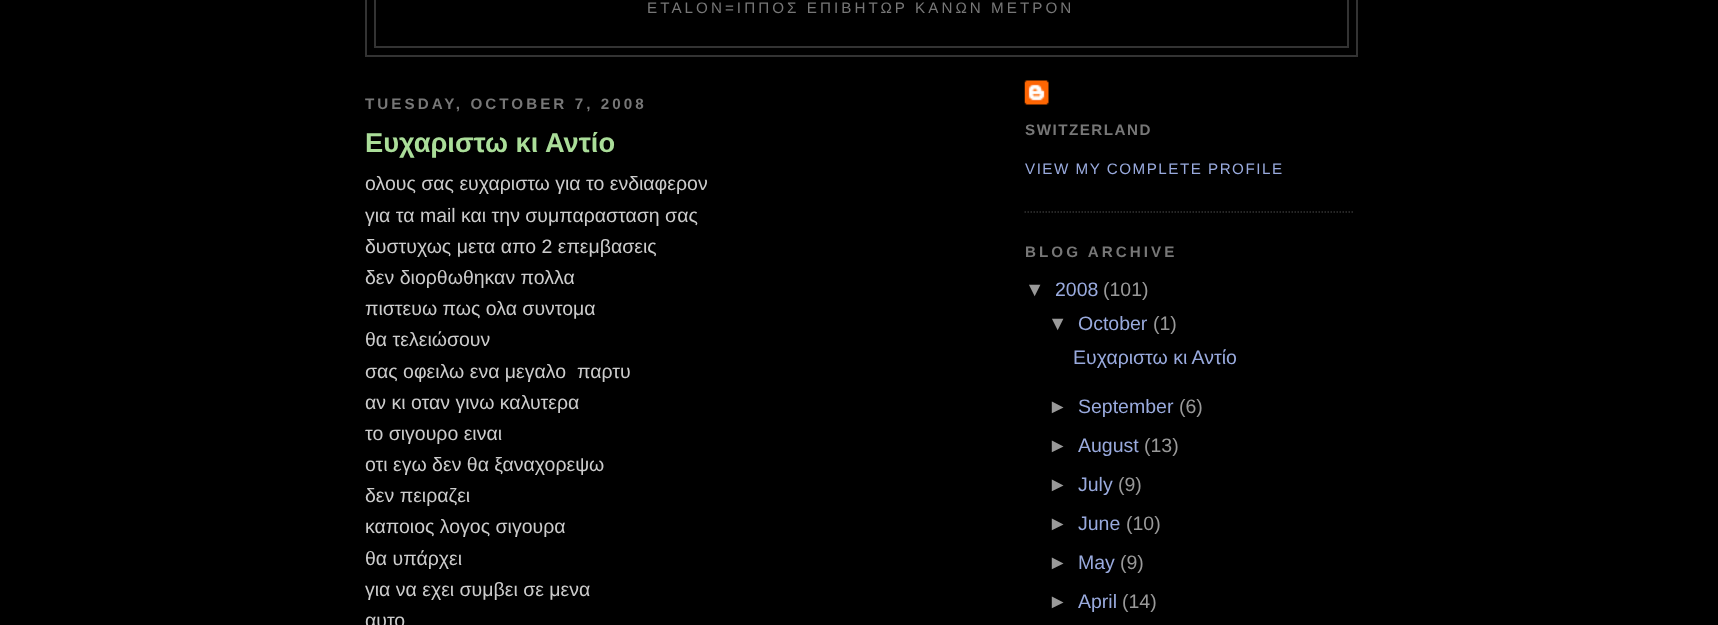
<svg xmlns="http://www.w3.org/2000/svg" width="1718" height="625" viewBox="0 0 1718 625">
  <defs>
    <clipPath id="clip1"><path d="M365 72h615v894H365z"/></clipPath>
  </defs>
  <rect width="100%" height="100%" fill="#000"/>
  <path d="M366 -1h991v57H366z" fill="none" stroke="#333" stroke-width="2"/>
  <path d="M375 -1h973v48H375z" fill="none" stroke="#333" stroke-width="2"/>
  <path d="M1024.5 212H1354.5" fill="none" stroke="#333" stroke-width="1.5" stroke-dasharray="1.5 1.5"/>
  <image x="1024" y="80" width="25" height="25" href="img/1.png"/>
  <text x="647" y="13" font-family="Liberation Sans" font-size="15.2" letter-spacing="3.05" fill="#777">ETALON=ΙΠΠΟΣ ΕΠΙΒΗΤΩΡ ΚΑΝΩΝ ΜΕΤΡΟΝ</text>
  <g clip-path="url(#clip1)">
    <text x="365" y="109" font-family="Liberation Sans" font-size="15.2" font-weight="bold" letter-spacing="3.05" fill="#777">TUESDAY, OCTOBER 7, 2008</text>
  </g>
  <text x="365" y="152" font-family="Liberation Sans" font-size="27.25" font-weight="bold" fill="#ad9">Ευχαριστω κι Αντίο</text>
  <g font-family="Liberation Sans" font-size="19.5" fill="#ccc">
    <text x="365" y="190">ολους σας ευχαριστω για το ενδιαφερον</text>
    <text x="365" y="222">για τα mail και την συμπαρασταση σας</text>
    <text x="365" y="253">δυστυχως μετα απο 2 επεμβασεις</text>
    <text x="365" y="284">δεν διορθωθηκαν πολλα</text>
    <text x="365" y="315">πιστευω πως ολα συντομα</text>
    <text x="365" y="346">θα τελειώσουν</text>
    <text x="365" y="378" xml:space="preserve">σας οφειλω ενα μεγαλο  παρτυ</text>
    <text x="365" y="409">αν κι οταν γινω καλυτερα</text>
    <text x="365" y="440">το σιγουρο ειναι</text>
    <text x="365" y="471">οτι εγω δεν θα ξαναχορεψω</text>
    <text x="365" y="502">δεν πειραζει</text>
    <text x="365" y="533">καποιος λογος σιγουρα</text>
    <text x="365" y="565">θα υπάρχει</text>
    <text x="365" y="596">για να εχει συμβει σε μενα</text>
    <text x="365" y="627">αυτο</text>
  </g>
  <text x="1025" y="135" font-family="Liberation Sans" font-size="15.2" font-weight="bold" letter-spacing="1.5" fill="#777">SWITZERLAND</text>
  <text x="1025" y="174" font-family="Liberation Sans" font-size="15.2" letter-spacing="1.5" fill="#9ad">VIEW MY COMPLETE PROFILE</text>
  <text x="1025" y="257" font-family="Liberation Sans" font-size="15.2" font-weight="bold" letter-spacing="3.05" fill="#777">BLOG ARCHIVE</text>
  <text x="1025" y="296" font-family="Liberation Sans" font-size="19.5" fill="#999">▼</text>
  <text x="1055" y="296" font-family="Liberation Sans" font-size="19.5" fill="#9ad">2008</text>
  <g font-family="Liberation Sans" font-size="19.5" fill="#999">
    <text x="1103" y="296">(101)</text>
    <text x="1048" y="330">▼</text>
  </g>
  <text x="1078" y="330" font-family="Liberation Sans" font-size="19.5" fill="#9ad">October</text>
  <text x="1153" y="330" font-family="Liberation Sans" font-size="19.5" fill="#999">(1)</text>
  <text x="1073" y="364" font-family="Liberation Sans" font-size="19.5" fill="#9ad">Ευχαριστω κι Αντίο</text>
  <text x="1048" y="413" font-family="Liberation Sans" font-size="19.5" fill="#999">►</text>
  <text x="1078" y="413" font-family="Liberation Sans" font-size="19.5" fill="#9ad">September</text>
  <g font-family="Liberation Sans" font-size="19.5" fill="#999">
    <text x="1179" y="413">(6)</text>
    <text x="1048" y="452">►</text>
  </g>
  <text x="1078" y="452" font-family="Liberation Sans" font-size="19.5" fill="#9ad">August</text>
  <g font-family="Liberation Sans" font-size="19.5" fill="#999">
    <text x="1144" y="452">(13)</text>
    <text x="1048" y="491">►</text>
  </g>
  <text x="1078" y="491" font-family="Liberation Sans" font-size="19.5" fill="#9ad">July</text>
  <g font-family="Liberation Sans" font-size="19.5" fill="#999">
    <text x="1118" y="491">(9)</text>
    <text x="1048" y="530">►</text>
  </g>
  <text x="1078" y="530" font-family="Liberation Sans" font-size="19.5" fill="#9ad">June</text>
  <g font-family="Liberation Sans" font-size="19.5" fill="#999">
    <text x="1126" y="530">(10)</text>
    <text x="1048" y="569">►</text>
  </g>
  <text x="1078" y="569" font-family="Liberation Sans" font-size="19.5" fill="#9ad">May</text>
  <g font-family="Liberation Sans" font-size="19.5" fill="#999">
    <text x="1120" y="569">(9)</text>
    <text x="1048" y="608">►</text>
  </g>
  <text x="1078" y="608" font-family="Liberation Sans" font-size="19.5" fill="#9ad">April</text>
  <text x="1122" y="608" font-family="Liberation Sans" font-size="19.5" fill="#999">(14)</text>
</svg>
